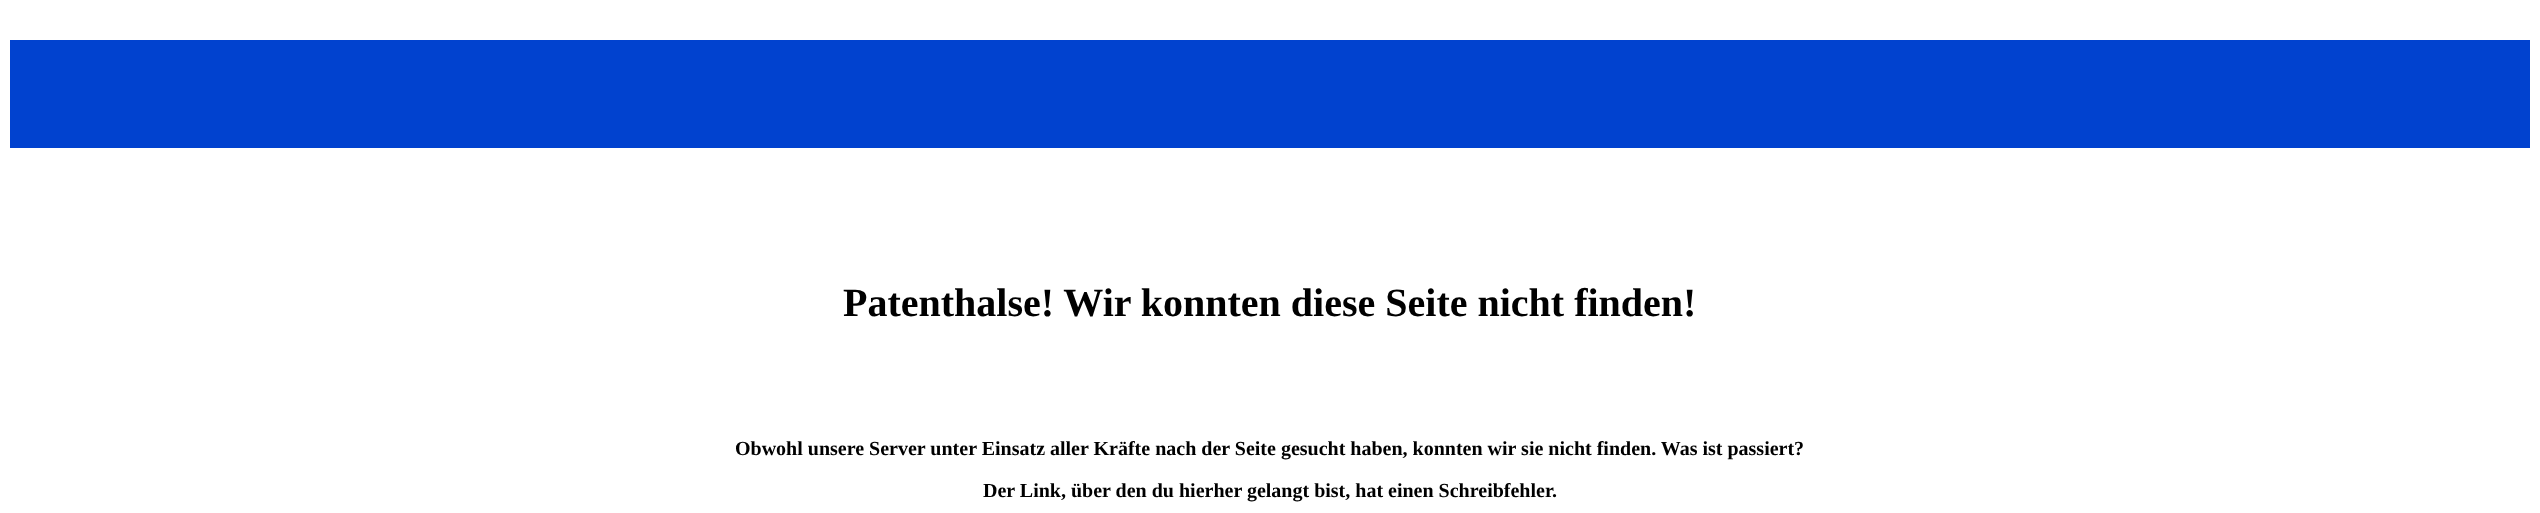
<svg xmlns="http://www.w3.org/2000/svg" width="2540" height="513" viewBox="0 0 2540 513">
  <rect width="100%" height="100%" fill="#fff"/>
  <path d="M10 40h2520v108H10z" fill="#0142cf"/>
  <text x="843" y="316" font-family="Liberation Serif" font-size="40" font-weight="bold" fill="#000">Patenthalse! Wir konnten diese Seite nicht finden!</text>
  <g font-family="Liberation Serif" font-size="20" font-weight="bold" fill="#000">
    <text x="735" y="455">Obwohl unsere Server unter Einsatz aller Kräfte nach der Seite gesucht haben, konnten wir sie nicht finden. Was ist passiert?</text>
    <text x="983" y="497">Der Link, über den du hierher gelangt bist, hat einen Schreibfehler.</text>
  </g>
</svg>
